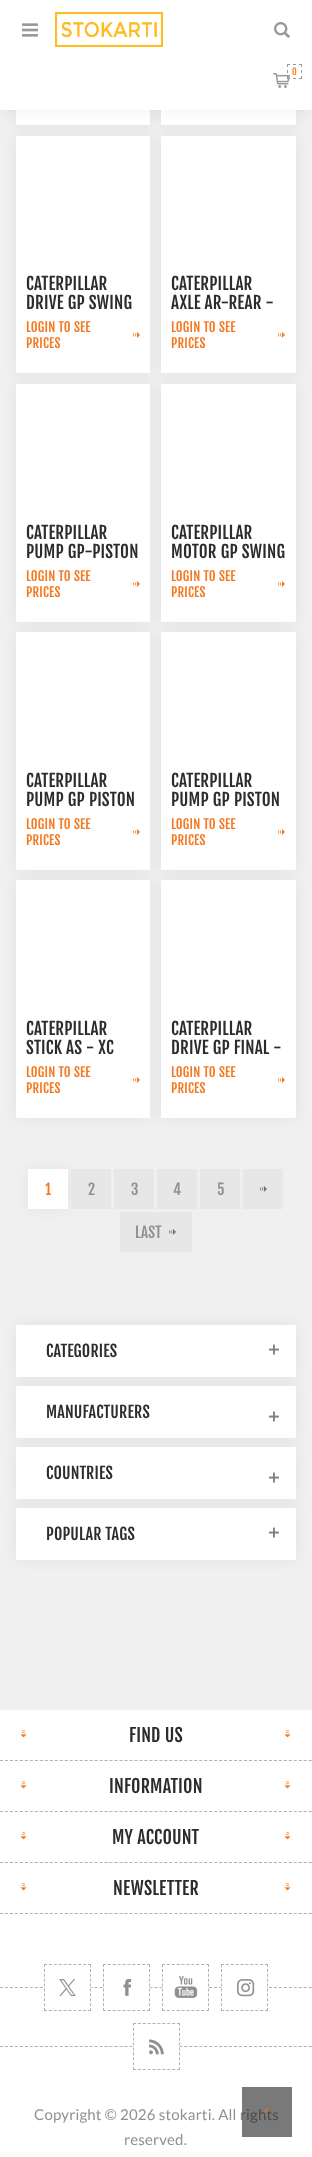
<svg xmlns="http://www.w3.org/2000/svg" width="312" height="2157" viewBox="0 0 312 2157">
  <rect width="100%" height="100%" fill="#f0f0f0"/>
  <path d="M16 -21h134v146H16z" fill="#0000000f" filter="blur(7px)"/>
  <path d="M16 110h134v15H16z" fill="#fff"/>
  <path d="M161 -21h135v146H161z" fill="#0000000f" filter="blur(7px)"/>
  <path d="M161 110h135v15H161z" fill="#fff"/>
  <path d="M0 0h312v110H0z" fill="#0000000f" filter="blur(7px)"/>
  <path d="M0 0h312v110H0z" fill="#fff"/>
  <image x="22" y="23" width="16" height="14" href="img/1.png"/>
  <image x="55" y="12" width="108" height="35" href="img/2.png"/>
  <image x="274" y="22" width="16" height="16" href="img/3.png"/>
  <image x="273" y="73" width="17" height="15" href="img/4.png"/>
  <path d="M287 64.5H290M293 64.5H296M299 64.5H302M301.5 64V67M301.5 70V73M301.5 76V79M287 78.5H290M293 78.5H296M299 78.5H302M287.5 64V67M287.5 70V73M287.5 76V79" fill="none" stroke="#999"/>
  <path d="M16 136h134v237H16z" fill="#0000000f" filter="blur(7px)"/>
  <path d="M16 136h134v237H16z" fill="#fff"/>
  <path d="M161 136h135v237H161z" fill="#0000000f" filter="blur(7px)"/>
  <image x="133" y="332" width="7" height="6" href="img/5.png"/>
  <path d="M161 136h135v237H161z" fill="#fff"/>
  <image x="278" y="332" width="7" height="6" href="img/5.png"/>
  <path d="M16 384h134v238H16z" fill="#0000000f" filter="blur(7px)"/>
  <path d="M16 384h134v238H16z" fill="#fff"/>
  <path d="M161 384h135v238H161z" fill="#0000000f" filter="blur(7px)"/>
  <image x="133" y="581" width="7" height="6" href="img/5.png"/>
  <path d="M161 384h135v238H161z" fill="#fff"/>
  <image x="278" y="581" width="7" height="6" href="img/5.png"/>
  <path d="M16 632h134v238H16z" fill="#0000000f" filter="blur(7px)"/>
  <path d="M16 632h134v238H16z" fill="#fff"/>
  <path d="M161 632h135v238H161z" fill="#0000000f" filter="blur(7px)"/>
  <image x="133" y="829" width="7" height="6" href="img/5.png"/>
  <path d="M161 632h135v238H161z" fill="#fff"/>
  <image x="278" y="829" width="7" height="6" href="img/5.png"/>
  <path d="M16 880h134v238H16z" fill="#0000000f" filter="blur(7px)"/>
  <path d="M16 880h134v238H16z" fill="#fff"/>
  <path d="M161 880h135v238H161z" fill="#0000000f" filter="blur(7px)"/>
  <image x="133" y="1077" width="7" height="6" href="img/5.png"/>
  <path d="M161 880h135v238H161z" fill="#fff"/>
  <image x="278" y="1077" width="7" height="6" href="img/5.png"/>
  <path d="M28 1169h40v40H28z" fill="#0000000f" filter="blur(7px)"/>
  <path d="M28 1169h40v40H28z" fill="#fff"/>
  <path d="M71 1169h40v40H71z" fill="#e7e7e7"/>
  <path d="M114 1169h40v40H114z" fill="#e7e7e7"/>
  <path d="M157 1169h40v40H157z" fill="#e7e7e7"/>
  <path d="M200 1169h40v40H200z" fill="#e7e7e7"/>
  <path d="M243 1169h40v40H243z" fill="#e7e7e7"/>
  <image x="260" y="1186" width="7" height="6" href="img/6.png"/>
  <path d="M120 1212h72v40H120z" fill="#e7e7e7"/>
  <image x="169" y="1229" width="7" height="6" href="img/6.png"/>
  <path d="M16 1325h280v52H16z" fill="#0000000f" filter="blur(7px)"/>
  <path d="M16 1325h280v52H16z" fill="#fff"/>
  <image x="269" y="1344" width="10" height="11" href="img/7.png"/>
  <path d="M16 1386h280v52H16z" fill="#0000000f" filter="blur(7px)"/>
  <path d="M16 1386h280v52H16z" fill="#fff"/>
  <image x="269" y="1411" width="10" height="11" href="img/7.png"/>
  <path d="M16 1447h280v52H16z" fill="#0000000f" filter="blur(7px)"/>
  <path d="M16 1447h280v52H16z" fill="#fff"/>
  <image x="269" y="1472" width="10" height="11" href="img/7.png"/>
  <path d="M16 1508h280v52H16z" fill="#0000000f" filter="blur(7px)"/>
  <path d="M16 1508h280v52H16z" fill="#fff"/>
  <image x="269" y="1527" width="10" height="11" href="img/7.png"/>
  <path d="M0 1710h312v447H0z" fill="#fff"/>
  <image x="20" y="1730" width="7" height="8" href="img/8.png"/>
  <image x="284" y="1730" width="7" height="8" href="img/8.png"/>
  <path d="M0 1760.5H312" fill="none" stroke="#b2b2b2" stroke-dasharray="3 1.98"/>
  <image x="20" y="1781" width="7" height="8" href="img/8.png"/>
  <image x="284" y="1781" width="7" height="8" href="img/8.png"/>
  <path d="M0 1811.5H312" fill="none" stroke="#b2b2b2" stroke-dasharray="3 1.98"/>
  <image x="20" y="1832" width="7" height="8" href="img/8.png"/>
  <image x="284" y="1832" width="7" height="8" href="img/8.png"/>
  <path d="M0 1913.5H312" fill="none" stroke="#b2b2b2" stroke-dasharray="3 1.98"/>
  <path d="M0 1862.5H312" fill="none" stroke="#b2b2b2" stroke-dasharray="3 1.98"/>
  <image x="20" y="1883" width="7" height="8" href="img/8.png"/>
  <image x="284" y="1883" width="7" height="8" href="img/8.png"/>
  <path d="M0 1987.5H312" fill="none" stroke="#b2b2b2" stroke-dasharray="3 1.98"/>
  <path d="M44 1987h47v1H44z" fill="#fff"/>
  <path d="M44 1964.5H91M90.5 1964V2011M44 2010.5H91M44.5 1964V2011" fill="none" stroke="#b2b2b2" stroke-dasharray="3 1.89"/>
  <image x="59" y="1979" width="17" height="18" href="img/9.png"/>
  <path d="M104 1987h46v1H104z" fill="#fff"/>
  <path d="M103 1964.5H150M149.5 1964V2011M103 2010.5H150M103.5 1964V2011" fill="none" stroke="#b2b2b2" stroke-dasharray="3 1.89"/>
  <image x="123" y="1979" width="9" height="17" href="img/10.png"/>
  <path d="M162 1987h46v1H162z" fill="#fff"/>
  <path d="M162 1964.5H209M208.5 1964V2011M162 2010.5H209M162.5 1964V2011" fill="none" stroke="#b2b2b2" stroke-dasharray="3 1.89"/>
  <image x="174" y="1976" width="24" height="22" href="img/11.png"/>
  <path d="M221 1987h46v1H221z" fill="#fff"/>
  <path d="M221 1964.5H268M267.5 1964V2011M221 2010.5H268M221.5 1964V2011" fill="none" stroke="#b2b2b2" stroke-dasharray="3 1.89"/>
  <image x="237" y="1979" width="18" height="18" href="img/12.png"/>
  <path d="M0 2046.5H312" fill="none" stroke="#b2b2b2" stroke-dasharray="3 1.98"/>
  <path d="M134 2046h46v1H134z" fill="#fff"/>
  <path d="M133 2023.5H180M179.5 2023V2070M133 2069.5H180M133.5 2023V2070" fill="none" stroke="#b2b2b2" stroke-dasharray="3 1.89"/>
  <image x="149" y="2039" width="15" height="16" href="img/13.png"/>
  <text x="292" y="75" font-family="Fjalla One" font-size="9" letter-spacing="0.2" fill="#f47920">0</text>
  <g font-family="Fjalla One" font-size="17" letter-spacing="0.2" fill="#2c2c2c">
    <text x="26" y="290">CATERPILLAR</text>
    <text x="26" y="309">DRIVE GP SWING</text>
  </g>
  <g font-family="Fjalla One" font-size="13" letter-spacing="0.2" fill="#f47920">
    <text x="26" y="332">LOGIN TO SEE</text>
    <text x="26" y="348">PRICES</text>
  </g>
  <g font-family="Fjalla One" font-size="17" letter-spacing="0.2" fill="#2c2c2c">
    <text x="171" y="290">CATERPILLAR</text>
    <text x="171" y="309">AXLE AR-REAR -</text>
  </g>
  <g font-family="Fjalla One" font-size="13" letter-spacing="0.2" fill="#f47920">
    <text x="171" y="332">LOGIN TO SEE</text>
    <text x="171" y="348">PRICES</text>
  </g>
  <g font-family="Fjalla One" font-size="17" letter-spacing="0.2" fill="#2c2c2c">
    <text x="26" y="539">CATERPILLAR</text>
    <text x="26" y="558">PUMP GP-PISTON</text>
  </g>
  <g font-family="Fjalla One" font-size="13" letter-spacing="0.2" fill="#f47920">
    <text x="26" y="581">LOGIN TO SEE</text>
    <text x="26" y="597">PRICES</text>
  </g>
  <g font-family="Fjalla One" font-size="17" letter-spacing="0.2" fill="#2c2c2c">
    <text x="171" y="539">CATERPILLAR</text>
    <text x="171" y="558">MOTOR GP SWING</text>
  </g>
  <g font-family="Fjalla One" font-size="13" letter-spacing="0.2" fill="#f47920">
    <text x="171" y="581">LOGIN TO SEE</text>
    <text x="171" y="597">PRICES</text>
  </g>
  <g font-family="Fjalla One" font-size="17" letter-spacing="0.2" fill="#2c2c2c">
    <text x="26" y="787">CATERPILLAR</text>
    <text x="26" y="806">PUMP GP PISTON</text>
  </g>
  <g font-family="Fjalla One" font-size="13" letter-spacing="0.2" fill="#f47920">
    <text x="26" y="829">LOGIN TO SEE</text>
    <text x="26" y="845">PRICES</text>
  </g>
  <g font-family="Fjalla One" font-size="17" letter-spacing="0.2" fill="#2c2c2c">
    <text x="171" y="787">CATERPILLAR</text>
    <text x="171" y="806">PUMP GP PISTON</text>
  </g>
  <g font-family="Fjalla One" font-size="13" letter-spacing="0.2" fill="#f47920">
    <text x="171" y="829">LOGIN TO SEE</text>
    <text x="171" y="845">PRICES</text>
  </g>
  <g font-family="Fjalla One" font-size="17" letter-spacing="0.2" fill="#2c2c2c">
    <text x="26" y="1035">CATERPILLAR</text>
    <text x="26" y="1054">STICK AS - XC</text>
  </g>
  <g font-family="Fjalla One" font-size="13" letter-spacing="0.2" fill="#f47920">
    <text x="26" y="1077">LOGIN TO SEE</text>
    <text x="26" y="1093">PRICES</text>
  </g>
  <g font-family="Fjalla One" font-size="17" letter-spacing="0.2" fill="#2c2c2c">
    <text x="171" y="1035">CATERPILLAR</text>
    <text x="171" y="1054">DRIVE GP FINAL -</text>
  </g>
  <g font-family="Fjalla One" font-size="13" letter-spacing="0.2" fill="#f47920">
    <text x="171" y="1077">LOGIN TO SEE</text>
    <text x="171" y="1093">PRICES</text>
  </g>
  <text x="45" y="1195" font-family="Fjalla One" font-size="15" letter-spacing="0.2" fill="#f47920">1</text>
  <g font-family="Fjalla One" font-size="15" letter-spacing="0.2" fill="#909090">
    <text x="88" y="1195">2</text>
    <text x="131" y="1195">3</text>
    <text x="173" y="1195">4</text>
    <text x="217" y="1195">5</text>
    <text x="135" y="1238">LAST</text>
  </g>
  <g font-family="Fjalla One" font-size="16" letter-spacing="0.2" fill="#2c2c2c">
    <text x="46" y="1357">CATEGORIES</text>
    <text x="46" y="1418">MANUFACTURERS</text>
    <text x="46" y="1479">COUNTRIES</text>
    <text x="46" y="1540">POPULAR TAGS</text>
  </g>
  <g font-family="Fjalla One" font-size="18" letter-spacing="0.2" fill="#2c2c2c">
    <text x="129" y="1742">FIND US</text>
    <text x="109" y="1793">INFORMATION</text>
    <text x="112" y="1844">MY ACCOUNT</text>
    <text x="113" y="1895">NEWSLETTER</text>
  </g>
  <g font-family="Lato" font-size="15" letter-spacing="0.2" fill="#909090">
    <text x="34" y="2120">Copyright © 2026 stokarti. All rights</text>
    <text x="124" y="2145">reserved.</text>
  </g>
  <path d="M242 2087h50v50H242z" fill="#1f1f1f99"/>
  <image x="263" y="2108" width="7" height="8" href="img/14.png"/>
</svg>
